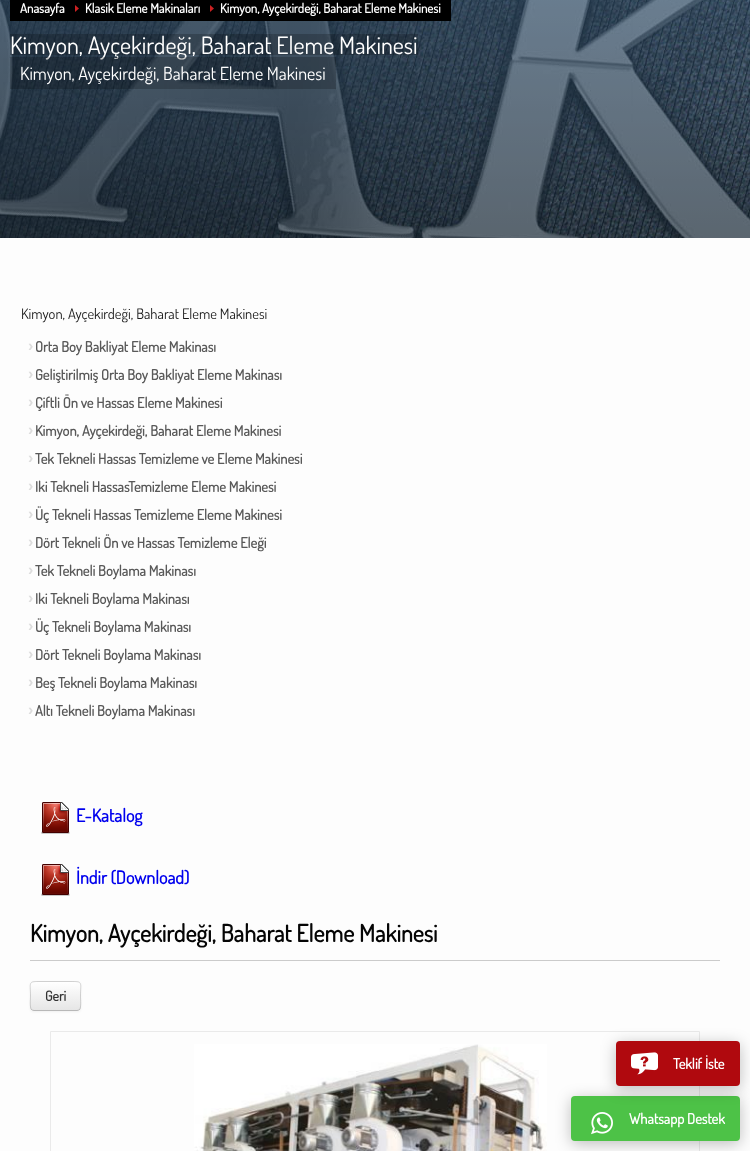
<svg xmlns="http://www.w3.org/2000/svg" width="750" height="1151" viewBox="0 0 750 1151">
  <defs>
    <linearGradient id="g1" gradientUnits="userSpaceOnUse" x1="375" y1="-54" x2="375" y2="238"><stop offset="0" stop-color="#345370"/><stop offset="1" stop-color="#1a2a38"/></linearGradient>
    <clipPath id="clip1"><rect x="30" y="981" width="51" height="30" rx="4"/></clipPath>
    <linearGradient id="g2" gradientUnits="userSpaceOnUse" x1="56" y1="982" x2="56" y2="1010"><stop offset="0" stop-color="#fff"/><stop offset="1" stop-color="#e6e6e6"/></linearGradient>
  </defs>
  <rect width="100%" height="100%" fill="#fdfdfd"/>
  <path d="M0 0h750v238H0z" fill="url(#g1)"/>
  <image x="0" y="0" width="750" height="238" href="img/1.png"/>
  <path d="M10 0h441v21H10z" fill="#000"/>
  <image x="75" y="5" width="4" height="7" href="img/2.png"/>
  <image x="210" y="5" width="4" height="7" href="img/2.png"/>
  <path d="M10 34h408v21H10z" fill="#00000033"/>
  <image x="41" y="802" width="29" height="32" href="img/3.png"/>
  <image x="41" y="864" width="29" height="32" href="img/3.png"/>
  <path d="M30 960h690v1H30z" fill="#cbcbcb"/>
  <rect x="30" y="982" width="51" height="30" rx="4" fill="#0000000d" filter="blur(1px)"/>
  <rect x="30" y="981" width="51" height="30" rx="4" fill="#f5f5f5"/>
  <g clip-path="url(#clip1)">
    <path d="M30 982h51v28H30z" fill="url(#g2)"/>
  </g>
  <path d="M34 983H77C79 983 80 984 80 986C80 980 74 982 70 982H41C37 982 31 980 31 986C31 984 32 983 34 983Z" fill="#fff"/>
  <path d="M79.5 1009.5C79 1010 78 1010.5 77 1010.5H34C33 1010.5 32 1010 31.5 1009.5" fill="none" stroke="#b8b8b8"/>
  <path d="M31.5 1009.5C29.5 1007.5 30.5 999 30.5 996C30.5 982 27.5 981.5 41 981.5H70C83.5 981.5 80.5 982 80.5 996C80.5 999 81.5 1007.5 79.5 1009.5" fill="none" stroke="#00000026"/>
  <path d="M50.5 1031.5h649v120H50.5z" fill="none" stroke="#eaeaea"/>
  <image x="194" y="1044" width="353" height="107" href="img/4.png"/>
  <rect x="571" y="1099" width="169" height="45" rx="4" fill="#00000040" filter="blur(7.5px)"/>
  <rect x="571" y="1096" width="169" height="45" rx="4" fill="#4dc247"/>
  <image x="591" y="1112" width="22" height="23" href="img/6.png"/>
  <rect x="616" y="1044" width="124" height="45" rx="4" fill="#00000040" filter="blur(7.5px)"/>
  <rect x="616" y="1041" width="124" height="45" rx="4" fill="#b0090e"/>
  <image x="631" y="1052" width="27" height="23" href="img/5.png"/>
  <g font-family="Dosis" font-size="13" font-weight="bold" fill="#fff">
    <text x="20" y="13">Anasayfa</text>
    <text x="85" y="13">Klasik Eleme Makinaları</text>
    <text x="220" y="13">Kimyon, Ayçekirdeği, Baharat Eleme Makinesi</text>
  </g>
  <text x="10" y="54" font-family="Dosis" font-size="24" fill="#fff">Kimyon, Ayçekirdeği, Baharat Eleme Makinesi</text>
  <path d="M10 57h326v32H10z" fill="#00000033"/>
  <text x="20" y="80" font-family="Dosis" font-size="18" fill="#fff">Kimyon, Ayçekirdeği, Baharat Eleme Makinesi</text>
  <text x="21" y="319" font-family="Dosis" font-size="14.5" fill="#1a1a1a">Kimyon, Ayçekirdeği, Baharat Eleme Makinesi</text>
  <text x="28" y="351" font-family="Liberation Sans" font-size="16" font-weight="bold" fill="#ddd">›</text>
  <text x="35" y="352" font-family="Dosis" font-size="14.5" font-weight="bold" fill="#595959">Orta Boy Bakliyat Eleme Makinası</text>
  <text x="28" y="379" font-family="Liberation Sans" font-size="16" font-weight="bold" fill="#ddd">›</text>
  <text x="35" y="380" font-family="Dosis" font-size="14.5" font-weight="bold" fill="#595959">Geliştirilmiş Orta Boy Bakliyat Eleme Makinası</text>
  <text x="28" y="407" font-family="Liberation Sans" font-size="16" font-weight="bold" fill="#ddd">›</text>
  <text x="35" y="408" font-family="Dosis" font-size="14.5" font-weight="bold" fill="#595959">Çiftli Ön ve Hassas Eleme Makinesi</text>
  <text x="28" y="435" font-family="Liberation Sans" font-size="16" font-weight="bold" fill="#ddd">›</text>
  <text x="35" y="436" font-family="Dosis" font-size="14.5" font-weight="bold" fill="#595959">Kimyon, Ayçekirdeği, Baharat Eleme Makinesi</text>
  <text x="28" y="463" font-family="Liberation Sans" font-size="16" font-weight="bold" fill="#ddd">›</text>
  <text x="35" y="464" font-family="Dosis" font-size="14.5" font-weight="bold" fill="#595959">Tek Tekneli Hassas Temizleme ve Eleme Makinesi</text>
  <text x="28" y="491" font-family="Liberation Sans" font-size="16" font-weight="bold" fill="#ddd">›</text>
  <text x="35" y="492" font-family="Dosis" font-size="14.5" font-weight="bold" fill="#595959">Iki Tekneli HassasTemizleme Eleme Makinesi</text>
  <text x="28" y="519" font-family="Liberation Sans" font-size="16" font-weight="bold" fill="#ddd">›</text>
  <text x="35" y="520" font-family="Dosis" font-size="14.5" font-weight="bold" fill="#595959">Üç Tekneli Hassas Temizleme Eleme Makinesi</text>
  <text x="28" y="547" font-family="Liberation Sans" font-size="16" font-weight="bold" fill="#ddd">›</text>
  <text x="35" y="548" font-family="Dosis" font-size="14.5" font-weight="bold" fill="#595959">Dört Tekneli Ön ve Hassas Temizleme Eleği</text>
  <text x="28" y="575" font-family="Liberation Sans" font-size="16" font-weight="bold" fill="#ddd">›</text>
  <text x="35" y="576" font-family="Dosis" font-size="14.5" font-weight="bold" fill="#595959">Tek Tekneli Boylama Makinası</text>
  <text x="28" y="603" font-family="Liberation Sans" font-size="16" font-weight="bold" fill="#ddd">›</text>
  <text x="35" y="604" font-family="Dosis" font-size="14.5" font-weight="bold" fill="#595959">Iki Tekneli Boylama Makinası</text>
  <text x="28" y="631" font-family="Liberation Sans" font-size="16" font-weight="bold" fill="#ddd">›</text>
  <text x="35" y="632" font-family="Dosis" font-size="14.5" font-weight="bold" fill="#595959">Üç Tekneli Boylama Makinası</text>
  <text x="28" y="659" font-family="Liberation Sans" font-size="16" font-weight="bold" fill="#ddd">›</text>
  <text x="35" y="660" font-family="Dosis" font-size="14.5" font-weight="bold" fill="#595959">Dört Tekneli Boylama Makinası</text>
  <text x="28" y="687" font-family="Liberation Sans" font-size="16" font-weight="bold" fill="#ddd">›</text>
  <text x="35" y="688" font-family="Dosis" font-size="14.5" font-weight="bold" fill="#595959">Beş Tekneli Boylama Makinası</text>
  <text x="28" y="715" font-family="Liberation Sans" font-size="16" font-weight="bold" fill="#ddd">›</text>
  <text x="35" y="716" font-family="Dosis" font-size="14.5" font-weight="bold" fill="#595959">Altı Tekneli Boylama Makinası</text>
  <g font-family="Dosis" font-size="18" font-weight="bold" fill="#00e">
    <text x="76" y="822">E-Katalog</text>
    <text x="76" y="884">İndir (Download)</text>
  </g>
  <text x="30" y="942" font-family="Dosis" font-size="24" font-weight="bold" fill="#050505">Kimyon, Ayçekirdeği, Baharat Eleme Makinesi</text>
  <text x="45" y="1001" font-family="Dosis" font-size="14" font-weight="bold" fill="#333">Geri</text>
  <g font-family="Dosis" font-size="14.5" font-weight="bold" fill="#fff">
    <text x="673" y="1069">Teklif İste</text>
    <text x="629" y="1124">Whatsapp Destek</text>
  </g>
</svg>
